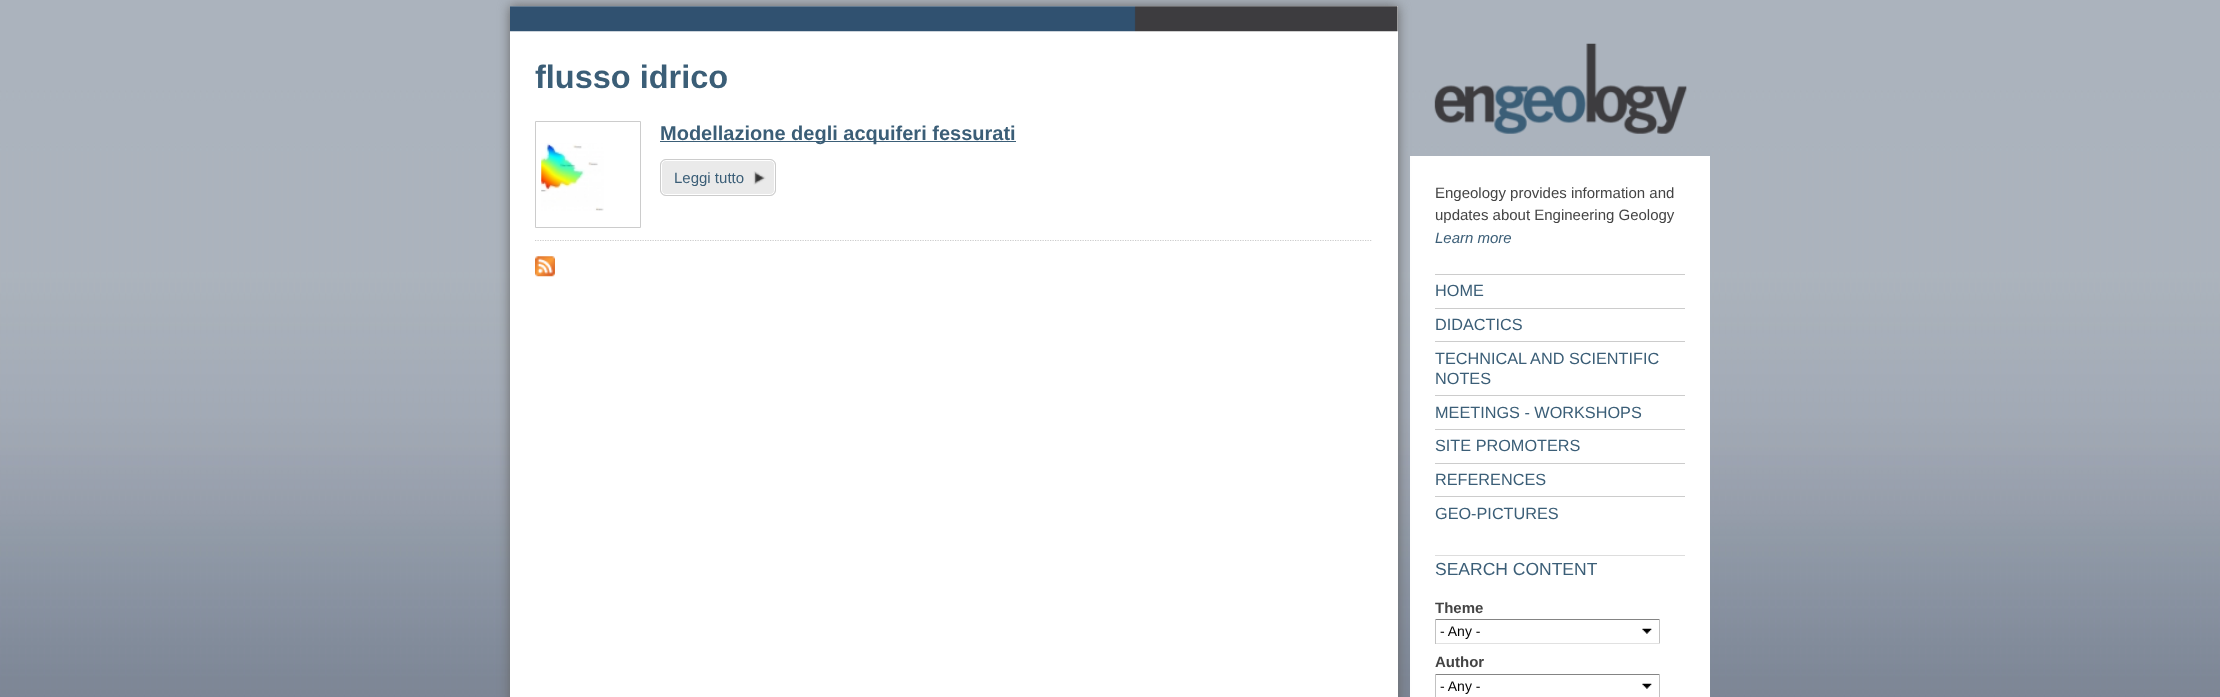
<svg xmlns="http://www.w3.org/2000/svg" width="2220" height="697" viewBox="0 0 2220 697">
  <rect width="100%" height="100%" fill="#fff"/>
  <image x="0" y="0" width="2220" height="697" href="img/1.png"/>
  <image x="1434" y="43" width="253" height="91" href="img/2.png"/>
  <path d="M1410 156h300v541H1410z" fill="#fff"/>
  <path d="M510 6h888v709H510z" fill="#666" filter="blur(6px)"/>
  <path d="M510 6h888v691H510z" fill="#fff"/>
  <image x="510" y="6" width="888" height="26" href="img/3.png"/>
  <path d="M535 240.5H1372.5" fill="none" stroke="#ccc" stroke-width="1.2" stroke-dasharray="1.25 1.25"/>
  <path d="M535.5 121.5h105v106H535.5z" fill="none" stroke="#ccc"/>
  <image x="541" y="143" width="63" height="68" href="img/4.png"/>
  <path d="M660 141h356v1H660z" fill="#3b5e77"/>
  <rect x="660" y="159" width="116" height="37" rx="6" fill="#eaeaea"/>
  <image x="753" y="171" width="13" height="14" href="img/5.png"/>
  <rect x="661.5" y="160.5" width="113" height="34" rx="4.5" fill="none" stroke="#fff"/>
  <rect x="660.5" y="159.5" width="115" height="36" rx="5.5" fill="none" stroke="#ccc"/>
  <image x="535" y="256" width="20" height="21" href="img/6.png"/>
  <path d="M1435 274h250v1H1435z" fill="#ccc"/>
  <path d="M1435 308h250v1H1435z" fill="#ccc"/>
  <path d="M1435 341h250v1H1435z" fill="#ccc"/>
  <path d="M1435 395h250v1H1435z" fill="#ccc"/>
  <path d="M1435 429h250v1H1435z" fill="#ccc"/>
  <path d="M1435 463h250v1H1435z" fill="#ccc"/>
  <path d="M1435 496h250v1H1435z" fill="#ccc"/>
  <path d="M1435 555h250v1H1435z" fill="#ddd"/>
  <image x="1642" y="628" width="10" height="6" href="img/7.png"/>
  <path d="M1435 619h225v1H1435z" fill="#848484"/>
  <path d="M1659 619h1v25H1659z" fill="#c1c1c1"/>
  <path d="M1435 643h225v1H1435z" fill="#e1e1e1"/>
  <path d="M1435 619h1v25H1435z" fill="#c1c1c1"/>
  <image x="1642" y="683" width="10" height="6" href="img/7.png"/>
  <path d="M1435 674h225v1H1435z" fill="#848484"/>
  <path d="M1659 674h1v23H1659z" fill="#c1c1c1"/>
  <path d="M1435 674h1v23H1435z" fill="#c1c1c1"/>
  <text x="535" y="88" font-family="Liberation Sans" font-size="32.5" font-weight="bold" fill="#3b5e77">flusso idrico</text>
  <text x="660" y="140" font-family="Liberation Sans" font-size="20" font-weight="bold" fill="#3b5e77">Modellazione degli acquiferi fessurati</text>
  <text x="674" y="183" font-family="Liberation Sans" font-size="15" fill="#3b5e77">Leggi tutto</text>
  <g font-family="Liberation Sans" font-size="15" fill="#444">
    <text x="1435" y="198">Engeology provides information and</text>
    <text x="1435" y="220">updates about Engineering Geology</text>
  </g>
  <text x="1435" y="243" font-family="Liberation Sans" font-size="15" font-style="italic" fill="#3b5e77">Learn more</text>
  <g font-family="Liberation Sans" font-size="16.25" fill="#3b5e77">
    <text x="1435" y="296">HOME</text>
    <text x="1435" y="330">DIDACTICS</text>
    <text x="1435" y="364">TECHNICAL AND SCIENTIFIC</text>
    <text x="1435" y="384">NOTES</text>
    <text x="1435" y="418">MEETINGS - WORKSHOPS</text>
    <text x="1435" y="451">SITE PROMOTERS</text>
    <text x="1435" y="485">REFERENCES</text>
    <text x="1435" y="519">GEO-PICTURES</text>
  </g>
  <text x="1435" y="575" font-family="Liberation Sans" font-size="17.5" fill="#3b5e77">SEARCH CONTENT</text>
  <text x="1435" y="613" font-family="Liberation Sans" font-size="15" font-weight="bold" fill="#444">Theme</text>
  <text x="1440" y="636" font-family="Liberation Sans" font-size="14" fill="#000">- Any -</text>
  <text x="1435" y="667" font-family="Liberation Sans" font-size="15" font-weight="bold" fill="#444">Author</text>
  <text x="1440" y="691" font-family="Liberation Sans" font-size="14" fill="#000">- Any -</text>
</svg>
